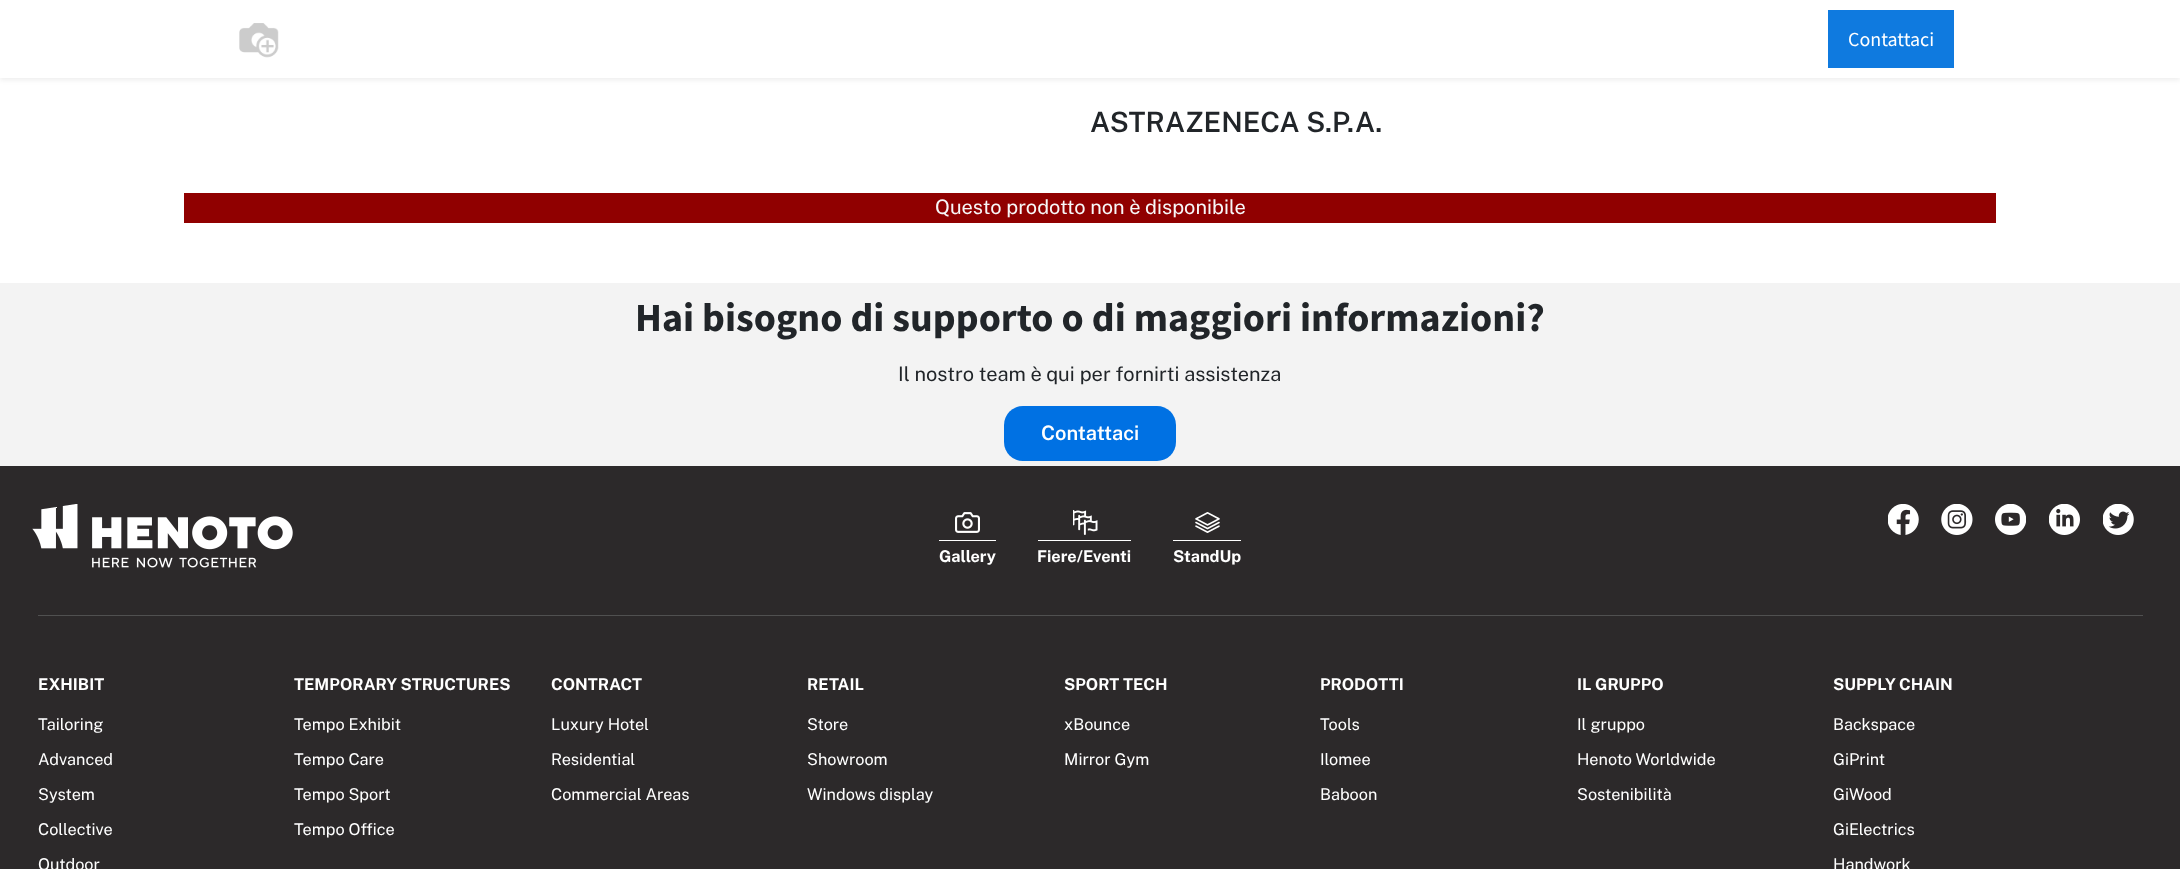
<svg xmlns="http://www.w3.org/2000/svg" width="2180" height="869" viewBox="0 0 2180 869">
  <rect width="100%" height="100%" fill="#fff"/>
  <path d="M0 3h2180v77H0z" fill="#00000012" filter="blur(2.5px)"/>
  <path d="M0 0h2180v78H0z" fill="#fff"/>
  <image x="239" y="23" width="40" height="35" href="img/1.png"/>
  <path d="M1828 10h126v58H1828z" fill="#0f7adf"/>
  <path d="M184 193h1812v30H184z" fill="#900000"/>
  <path d="M0 283h2180v183H0z" fill="#f3f3f3"/>
  <rect x="1004" y="406" width="172" height="55" rx="19" fill="#0071e3"/>
  <path d="M0 466h2180v403H0z" fill="#2c292a"/>
  <image x="32" y="504" width="261" height="64" href="img/2.png"/>
  <image x="1888" y="504" width="31" height="31" href="img/3.png"/>
  <image x="1941" y="504" width="32" height="31" href="img/4.png"/>
  <image x="1995" y="504" width="31" height="31" href="img/5.png"/>
  <image x="2049" y="504" width="31" height="31" href="img/6.png"/>
  <image x="2103" y="504" width="31" height="31" href="img/7.png"/>
  <image x="955" y="512" width="25" height="21" href="img/8.png"/>
  <path d="M939 540h57v1H939z" fill="#fff"/>
  <image x="1073" y="510" width="25" height="25" href="img/9.png"/>
  <path d="M1038 540h93v1H1038z" fill="#fff"/>
  <image x="1195" y="512" width="25" height="21" href="img/10.png"/>
  <path d="M1173 540h68v1H1173z" fill="#fff"/>
  <path d="M38 615h2105v1H38z" fill="#505050"/>
  <text x="1848" y="46" font-family="Source Sans Pro" font-size="20" fill="#fff">Contattaci</text>
  <text x="1090" y="132" font-family="Public Sans" font-size="28" font-weight="600" fill="#212529">ASTRAZENECA S.P.A.</text>
  <text x="935" y="214" font-family="Public Sans" font-size="20" fill="#f7f7f8">Questo prodotto non è disponibile</text>
  <text x="635" y="331" font-family="Source Sans Pro" font-size="40" font-weight="bold" fill="#212529">Hai bisogno di supporto o di maggiori informazioni?</text>
  <text x="898" y="381" font-family="Public Sans" font-size="20" fill="#212529">Il nostro team è qui per fornirti assistenza</text>
  <text x="1041" y="440" font-family="Public Sans" font-size="20" font-weight="600" fill="#fff">Contattaci</text>
  <g font-family="Public Sans" font-size="16.25" font-weight="bold" fill="#fff">
    <text x="939" y="562">Gallery</text>
    <text x="1037" y="562">Fiere/Eventi</text>
    <text x="1173" y="562">StandUp</text>
    <text x="38" y="690">EXHIBIT</text>
  </g>
  <g font-family="Public Sans" font-size="16.25" fill="#fff">
    <text x="38" y="730">Tailoring</text>
    <text x="38" y="765">Advanced</text>
    <text x="38" y="800">System</text>
    <text x="38" y="835">Collective</text>
    <text x="38" y="870">Outdoor</text>
  </g>
  <text x="294" y="690" font-family="Public Sans" font-size="16.25" font-weight="bold" fill="#fff">TEMPORARY STRUCTURES</text>
  <g font-family="Public Sans" font-size="16.25" fill="#fff">
    <text x="294" y="730">Tempo Exhibit</text>
    <text x="294" y="765">Tempo Care</text>
    <text x="294" y="800">Tempo Sport</text>
    <text x="294" y="835">Tempo Office</text>
  </g>
  <text x="551" y="690" font-family="Public Sans" font-size="16.25" font-weight="bold" fill="#fff">CONTRACT</text>
  <g font-family="Public Sans" font-size="16.25" fill="#fff">
    <text x="551" y="730">Luxury Hotel</text>
    <text x="551" y="765">Residential</text>
    <text x="551" y="800">Commercial Areas</text>
  </g>
  <text x="807" y="690" font-family="Public Sans" font-size="16.25" font-weight="bold" fill="#fff">RETAIL</text>
  <g font-family="Public Sans" font-size="16.25" fill="#fff">
    <text x="807" y="730">Store</text>
    <text x="807" y="765">Showroom</text>
    <text x="807" y="800">Windows display</text>
  </g>
  <text x="1064" y="690" font-family="Public Sans" font-size="16.25" font-weight="bold" fill="#fff">SPORT TECH</text>
  <g font-family="Public Sans" font-size="16.25" fill="#fff">
    <text x="1064" y="730">xBounce</text>
    <text x="1064" y="765">Mirror Gym</text>
  </g>
  <text x="1320" y="690" font-family="Public Sans" font-size="16.25" font-weight="bold" fill="#fff">PRODOTTI</text>
  <g font-family="Public Sans" font-size="16.25" fill="#fff">
    <text x="1320" y="730">Tools</text>
    <text x="1320" y="765">Ilomee</text>
    <text x="1320" y="800">Baboon</text>
  </g>
  <text x="1577" y="690" font-family="Public Sans" font-size="16.25" font-weight="bold" fill="#fff">IL GRUPPO</text>
  <g font-family="Public Sans" font-size="16.25" fill="#fff">
    <text x="1577" y="730">Il gruppo</text>
    <text x="1577" y="765">Henoto Worldwide</text>
    <text x="1577" y="800">Sostenibilità</text>
  </g>
  <text x="1833" y="690" font-family="Public Sans" font-size="16.25" font-weight="bold" fill="#fff">SUPPLY CHAIN</text>
  <g font-family="Public Sans" font-size="16.25" fill="#fff">
    <text x="1833" y="730">Backspace</text>
    <text x="1833" y="765">GiPrint</text>
    <text x="1833" y="800">GiWood</text>
    <text x="1833" y="835">GiElectrics</text>
    <text x="1833" y="870">Handwork</text>
  </g>
</svg>
